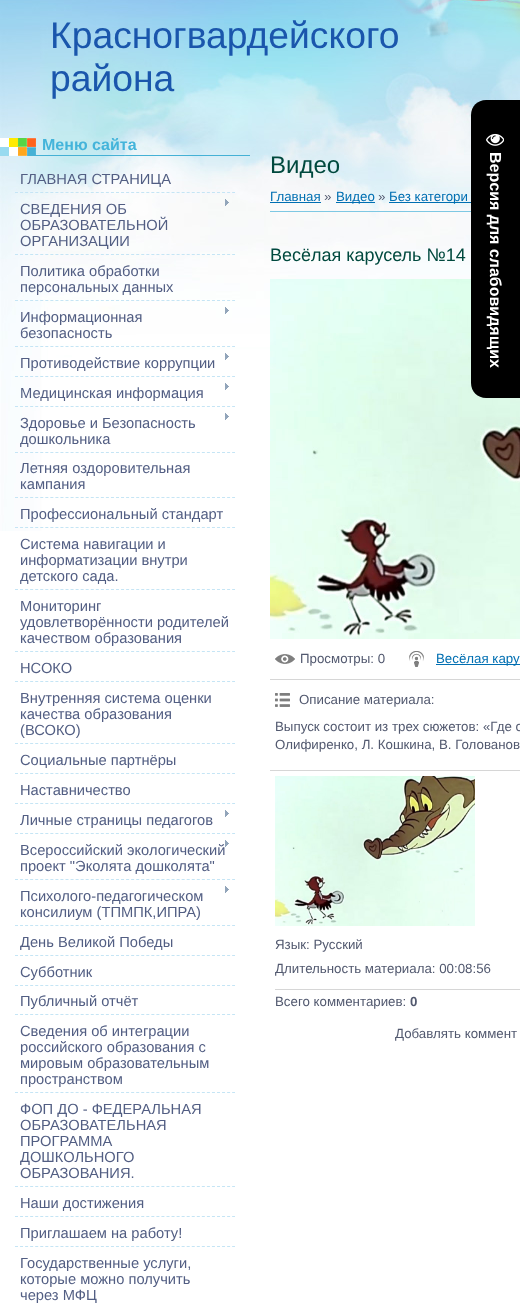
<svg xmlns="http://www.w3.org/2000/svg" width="520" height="1304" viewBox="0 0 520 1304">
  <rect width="100%" height="100%" fill="#fff"/>
  <image x="0" y="0" width="520" height="531" href="img/1.png"/>
  <image x="0" y="138" width="250" height="18" href="img/2.png"/>
  <path d="M15 192.5H235" fill="none" stroke="#c5e5f5" stroke-dasharray="3 2.05"/>
  <path d="M15 254.5H235" fill="none" stroke="#c5e5f5" stroke-dasharray="3 2.05"/>
  <image x="225" y="199" width="4" height="7" href="img/3.png"/>
  <path d="M15 300.5H235" fill="none" stroke="#c5e5f5" stroke-dasharray="3 2.05"/>
  <path d="M15 346.5H235" fill="none" stroke="#c5e5f5" stroke-dasharray="3 2.05"/>
  <image x="225" y="307" width="4" height="7" href="img/4.png"/>
  <path d="M15 376.5H235" fill="none" stroke="#c5e5f5" stroke-dasharray="3 2.05"/>
  <image x="225" y="353" width="4" height="7" href="img/5.png"/>
  <path d="M15 406.5H235" fill="none" stroke="#c5e5f5" stroke-dasharray="3 2.05"/>
  <image x="225" y="383" width="4" height="7" href="img/5.png"/>
  <path d="M15 452.5H235" fill="none" stroke="#c5e5f5" stroke-dasharray="3 2.05"/>
  <image x="225" y="413" width="4" height="7" href="img/5.png"/>
  <path d="M15 497.5H235" fill="none" stroke="#c5e5f5" stroke-dasharray="3 2.05"/>
  <path d="M15 527.5H235" fill="none" stroke="#c5e5f5" stroke-dasharray="3 2.05"/>
  <path d="M15 589.5H235" fill="none" stroke="#c5e5f5" stroke-dasharray="3 2.05"/>
  <path d="M15 651.5H235" fill="none" stroke="#c5e5f5" stroke-dasharray="3 2.05"/>
  <path d="M15 681.5H235" fill="none" stroke="#c5e5f5" stroke-dasharray="3 2.05"/>
  <path d="M15 743.5H235" fill="none" stroke="#c5e5f5" stroke-dasharray="3 2.05"/>
  <path d="M15 773.5H235" fill="none" stroke="#c5e5f5" stroke-dasharray="3 2.05"/>
  <path d="M15 803.5H235" fill="none" stroke="#c5e5f5" stroke-dasharray="3 2.05"/>
  <path d="M15 833.5H235" fill="none" stroke="#c5e5f5" stroke-dasharray="3 2.05"/>
  <image x="225" y="810" width="4" height="7" href="img/5.png"/>
  <path d="M15 879.5H235" fill="none" stroke="#c5e5f5" stroke-dasharray="3 2.05"/>
  <image x="225" y="840" width="4" height="7" href="img/5.png"/>
  <path d="M15 925.5H235" fill="none" stroke="#c5e5f5" stroke-dasharray="3 2.05"/>
  <image x="225" y="886" width="4" height="7" href="img/5.png"/>
  <path d="M15 955.5H235" fill="none" stroke="#c5e5f5" stroke-dasharray="3 2.05"/>
  <path d="M15 985.5H235" fill="none" stroke="#c5e5f5" stroke-dasharray="3 2.05"/>
  <path d="M15 1014.5H235" fill="none" stroke="#c5e5f5" stroke-dasharray="3 2.05"/>
  <path d="M15 1092.5H235" fill="none" stroke="#c5e5f5" stroke-dasharray="3 2.05"/>
  <path d="M15 1186.5H235" fill="none" stroke="#c5e5f5" stroke-dasharray="3 2.05"/>
  <path d="M15 1216.5H235" fill="none" stroke="#c5e5f5" stroke-dasharray="3 2.05"/>
  <path d="M15 1246.5H235" fill="none" stroke="#c5e5f5" stroke-dasharray="3 2.05"/>
  <path d="M270 202h51v1H270z" fill="#006fb2"/>
  <path d="M336 202h39v1H336z" fill="#006fb2"/>
  <path d="M389 202h87v1H389z" fill="#006fb2"/>
  <path d="M270 211h201v1H270z" fill="#7ec8e3"/>
  <image x="270" y="279" width="250" height="360" href="img/6.png"/>
  <image x="275" y="654" width="20" height="10" href="img/7.png"/>
  <image x="409" y="651" width="15" height="16" href="img/8.png"/>
  <path d="M436 664h84v1H436z" fill="#006fb2"/>
  <path d="M270 679h250v1H270z" fill="#d6d6d6"/>
  <image x="275" y="693" width="15" height="14" href="img/9.png"/>
  <path d="M270 770h250v1H270z" fill="#d6d6d6"/>
  <image x="275" y="776" width="200" height="150" href="img/10.png"/>
  <path d="M275 989h245v1H275z" fill="#d6d6d6"/>
  <path d="M486 100H520V398H486C477.5 398 471 391.5 471 383V115C471 106.5 477.5 100 486 100Z" fill="#000"/>
  <image x="486" y="133" width="18" height="13" href="img/11.png"/>
  <g font-family="Liberation Sans" font-size="37.25" fill="#1a56ac">
    <text x="50" y="48">Красногвардейского</text>
    <text x="50" y="91">района</text>
  </g>
  <text x="42" y="150" font-family="Liberation Sans" font-size="16" font-weight="bold" fill="#44b4da">Меню сайта</text>
  <g font-family="Liberation Sans" font-size="14.7" fill="#525e83">
    <text x="20" y="184">ГЛАВНАЯ СТРАНИЦА</text>
    <text x="20" y="214">СВЕДЕНИЯ ОБ</text>
    <text x="20" y="230">ОБРАЗОВАТЕЛЬНОЙ</text>
    <text x="20" y="246">ОРГАНИЗАЦИИ</text>
    <text x="20" y="276">Политика обработки</text>
    <text x="20" y="292">персональных данных</text>
    <text x="20" y="322">Информационная</text>
    <text x="20" y="338">безопасность</text>
    <text x="20" y="368">Противодействие коррупции</text>
    <text x="20" y="398">Медицинская информация</text>
    <text x="20" y="428">Здоровье и Безопасность</text>
    <text x="20" y="444">дошкольника</text>
    <text x="20" y="473">Летняя оздоровительная</text>
    <text x="20" y="489">кампания</text>
    <text x="20" y="519">Профессиональный стандарт</text>
    <text x="20" y="549">Система навигации и</text>
    <text x="20" y="565">информатизации внутри</text>
    <text x="20" y="581">детского сада.</text>
    <text x="20" y="611">Мониторинг</text>
    <text x="20" y="627">удовлетворённости родителей</text>
    <text x="20" y="643">качеством образования</text>
    <text x="20" y="673">НСОКО</text>
    <text x="20" y="703">Внутренняя система оценки</text>
    <text x="20" y="719">качества образования</text>
    <text x="20" y="735">(ВСОКО)</text>
    <text x="20" y="765">Социальные партнёры</text>
    <text x="20" y="795">Наставничество</text>
    <text x="20" y="825">Личные страницы педагогов</text>
    <text x="20" y="855">Всероссийский экологический</text>
    <text x="20" y="871">проект "Эколята дошколята"</text>
    <text x="20" y="901">Психолого-педагогическом</text>
    <text x="20" y="917">консилиум (ТПМПК,ИПРА)</text>
    <text x="20" y="947">День Великой Победы</text>
    <text x="20" y="977">Субботник</text>
    <text x="20" y="1006">Публичный отчёт</text>
    <text x="20" y="1036">Сведения об интеграции</text>
    <text x="20" y="1052">российского образования с</text>
    <text x="20" y="1068">мировым образовательным</text>
    <text x="20" y="1084">пространством</text>
    <text x="20" y="1114">ФОП ДО - ФЕДЕРАЛЬНАЯ</text>
    <text x="20" y="1130">ОБРАЗОВАТЕЛЬНАЯ</text>
    <text x="20" y="1146">ПРОГРАММА</text>
    <text x="20" y="1162">ДОШКОЛЬНОГО</text>
    <text x="20" y="1178">ОБРАЗОВАНИЯ.</text>
    <text x="20" y="1208">Наши достижения</text>
    <text x="20" y="1238">Приглашаем на работу!</text>
    <text x="20" y="1268">Государственные услуги,</text>
    <text x="20" y="1284">которые можно получить</text>
    <text x="20" y="1300">через МФЦ</text>
  </g>
  <text x="270" y="173" font-family="Liberation Sans" font-size="24" fill="#00493e">Видео</text>
  <text x="270" y="201" font-family="Liberation Sans" font-size="13.3" fill="#006fb2">Главная</text>
  <text x="324" y="201" font-family="Liberation Sans" font-size="13.3" fill="#52596f">»</text>
  <text x="336" y="201" font-family="Liberation Sans" font-size="13.3" fill="#006fb2">Видео</text>
  <text x="378" y="201" font-family="Liberation Sans" font-size="13.3" fill="#52596f">»</text>
  <text x="389" y="201" font-family="Liberation Sans" font-size="13.3" fill="#006fb2">Без категори</text>
  <text x="270" y="261" font-family="Liberation Sans" font-size="18" fill="#00493e">Весёлая карусель №14</text>
  <text x="300" y="663" font-family="Liberation Sans" font-size="13.3" fill="#52596f">Просмотры: 0</text>
  <text x="436" y="663" font-family="Liberation Sans" font-size="13.3" fill="#006fb2">Весёлая кару</text>
  <g font-family="Liberation Sans" font-size="13.3" fill="#52596f">
    <text x="299" y="704">Описание материала:</text>
    <text x="275" y="731">Выпуск состоит из трех сюжетов: «Где о</text>
    <text x="275" y="749">Олифиренко, Л. Кошкина, В. Голованов</text>
    <text x="275" y="949">Язык: Русский</text>
    <text x="275" y="973">Длительность материала: 00:08:56</text>
    <text x="275" y="1006">Всего комментариев:</text>
  </g>
  <text x="410" y="1006" font-family="Liberation Sans" font-size="13.3" font-weight="bold" fill="#52596f">0</text>
  <text x="395" y="1038" font-family="Liberation Sans" font-size="13.3" fill="#52596f">Добавлять коммент</text>
  <text x="490" y="152" transform="rotate(90 490 152)" font-family="Liberation Sans" font-size="16" font-weight="bold" fill="#fff">Версия для слабовидящих</text>
</svg>
